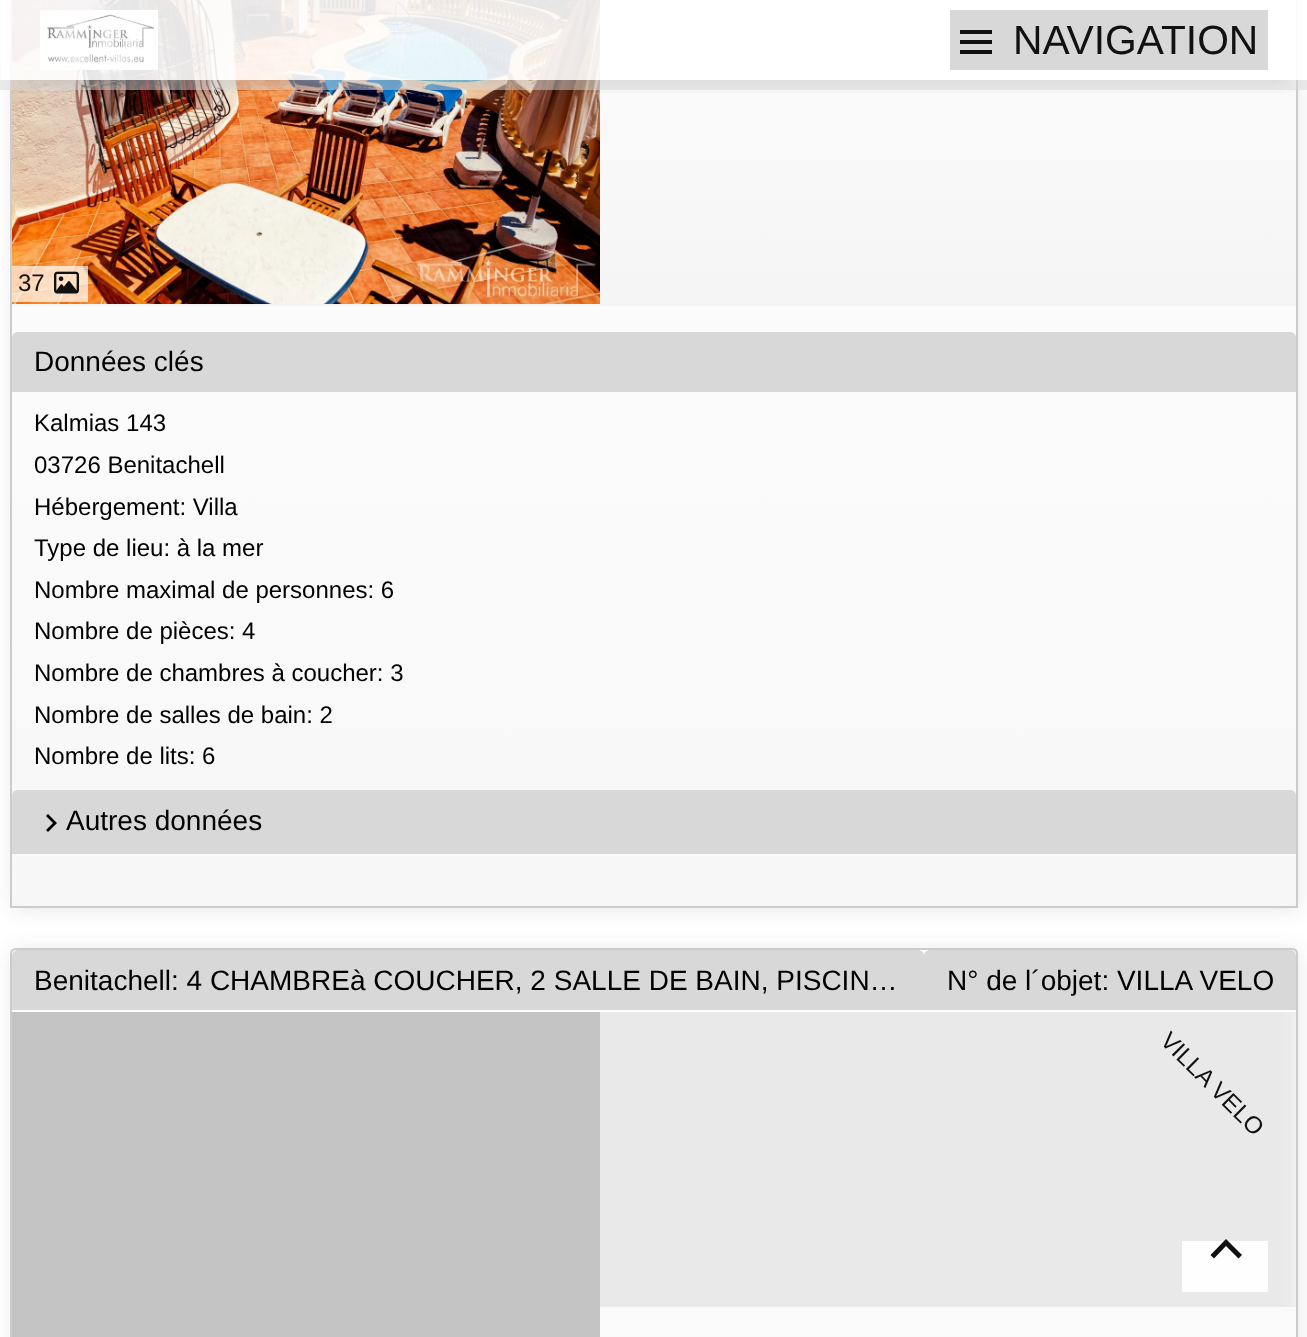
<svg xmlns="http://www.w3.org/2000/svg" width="1307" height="1337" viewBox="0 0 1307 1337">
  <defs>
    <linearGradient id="g1" gradientUnits="userSpaceOnUse" x1="654" y1="-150" x2="654" y2="906"><stop offset="0" stop-color="#fff"/><stop offset="1" stop-color="#f7f7f7"/></linearGradient>
    <linearGradient id="g2" gradientUnits="userSpaceOnUse" x1="654" y1="-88" x2="654" y2="306"><stop offset="0" stop-color="#fefefe"/><stop offset="1" stop-color="#f5f5f5"/></linearGradient>
    <clipPath id="clip1"><path d="M12 0h1284v306H12z"/></clipPath>
    <clipPath id="clip2"><path d="M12 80h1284v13H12z"/></clipPath>
    <clipPath id="clip3"><path d="M16 948H1292C1295.5 948 1298 950.5 1298 954V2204H10V954C10 950.5 12.5 948 16 948Z"/></clipPath>
    <linearGradient id="g3" gradientUnits="userSpaceOnUse" x1="654" y1="950" x2="654" y2="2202"><stop offset="0" stop-color="#fff"/><stop offset="1" stop-color="#f7f7f7"/></linearGradient>
    <linearGradient id="g4" gradientUnits="userSpaceOnUse" x1="654" y1="1012" x2="654" y2="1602"><stop offset="0" stop-color="#fff"/><stop offset="1" stop-color="#f6f6f6"/></linearGradient>
  </defs>
  <rect width="100%" height="100%" fill="#fff"/>
  <rect x="12" y="-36" width="1288" height="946" rx="6" fill="#2929291a" filter="blur(10px)"/>
  <path d="M12 306h1284v600H12z" fill="url(#g1)"/>
  <path d="M11 -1h1286v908H11z" fill="none" stroke="#ccc" stroke-width="2"/>
  <path d="M12 0h1284v306H12z" fill="url(#g2)"/>
  <image x="12" y="0" width="588" height="304" href="img/3.png"/>
  <g clip-path="url(#clip1)">
    <path d="M1124-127L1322 71L1300 93L1102-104Z" fill="#fefefe"/>
  </g>
  <g clip-path="url(#clip2)">
    <path d="M20 40h1268v40H20z" fill="#00000033" filter="blur(10px)"/>
  </g>
  <path d="M1 0h1306v80H1z" fill="#ffffffe6"/>
  <image x="40" y="10" width="118" height="60" href="img/1.png"/>
  <path d="M0 80h1307v10H0z" fill="#d8d8d880"/>
  <path d="M950 10h318v60H950z" fill="#d8d8d8"/>
  <image x="960" y="30" width="32" height="24" href="img/2.png"/>
  <path d="M12 266h76v36H12z" fill="#ffffffb3"/>
  <image x="54" y="271" width="25" height="23" href="img/4.png"/>
  <path d="M18 332H1290C1293.5 332 1296 334.5 1296 338V392H12V338C12 334.5 14.5 332 18 332Z" fill="#d8d8d8"/>
  <path d="M18 790H1290C1293.5 790 1296 792.5 1296 796V854H12V796C12 792.5 14.5 790 18 790Z" fill="#d8d8d8"/>
  <path d="M46 816L48 814L57 823L48 832L46 830L53 823Z" fill="#000"/>
  <rect x="12" y="950" width="1288" height="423" rx="6" fill="#2929291a" filter="blur(10px)"/>
  <g clip-path="url(#clip3)">
    <path d="M10 950h1288v62H10z" fill="url(#g3)"/>
  </g>
  <path d="M16 949H1292C1295 949 1297 951 1297 954V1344H11V954C11 951 13 949 16 949Z" fill="none" stroke="#ccc" stroke-width="2"/>
  <path d="M18 950H918C921.5 950 924 952.5 924 956V1010H12V956C12 952.5 14.5 950 18 950Z" fill="#d8d8d8"/>
  <path d="M930 950H1290C1293.5 950 1296 952.5 1296 956V1010H924V956C924 952.5 926.5 950 930 950Z" fill="#d8d8d8"/>
  <path d="M600 1307h696v30H600z" fill="url(#g4)"/>
  <path d="M12 1012h588v325H12z" fill="#c3c3c3"/>
  <path d="M1182 1241h86v51H1182z" fill="#fefefe"/>
  <path d="M1238.5 1258.5L1226 1246L1214 1258.5L1210.5 1255L1226 1239L1242 1255Z" fill="#111"/>
  <text x="1013" y="54" font-family="Liberation Sans" font-size="40.75" fill="#111">NAVIGATION</text>
  <text x="18" y="291" font-family="Liberation Sans" font-size="24" fill="#111">37</text>
  <text x="34" y="371" font-family="Liberation Sans" font-size="28" fill="#000">Données clés</text>
  <g font-family="Liberation Sans" font-size="24" fill="#000">
    <text x="34" y="431">Kalmias 143</text>
    <text x="34" y="473">03726 Benitachell</text>
    <text x="34" y="515">Hébergement: Villa</text>
    <text x="34" y="556">Type de lieu: à la mer</text>
    <text x="34" y="598">Nombre maximal de personnes: 6</text>
    <text x="34" y="639">Nombre de pièces: 4</text>
    <text x="34" y="681">Nombre de chambres à coucher: 3</text>
    <text x="34" y="723">Nombre de salles de bain: 2</text>
    <text x="34" y="764">Nombre de lits: 6</text>
  </g>
  <g font-family="Liberation Sans" font-size="28" fill="#000">
    <text x="66" y="830">Autres données</text>
    <text x="34" y="990">Benitachell: 4 CHAMBREà COUCHER, 2 SALLE DE BAIN, PISCIN…</text>
    <text x="947" y="990">N° de l´objet: VILLA VELO</text>
  </g>
  <text x="1159" y="1042" transform="rotate(45 1159 1042)" font-family="Liberation Sans" font-size="24" fill="#111">VILLA VELO</text>
</svg>
